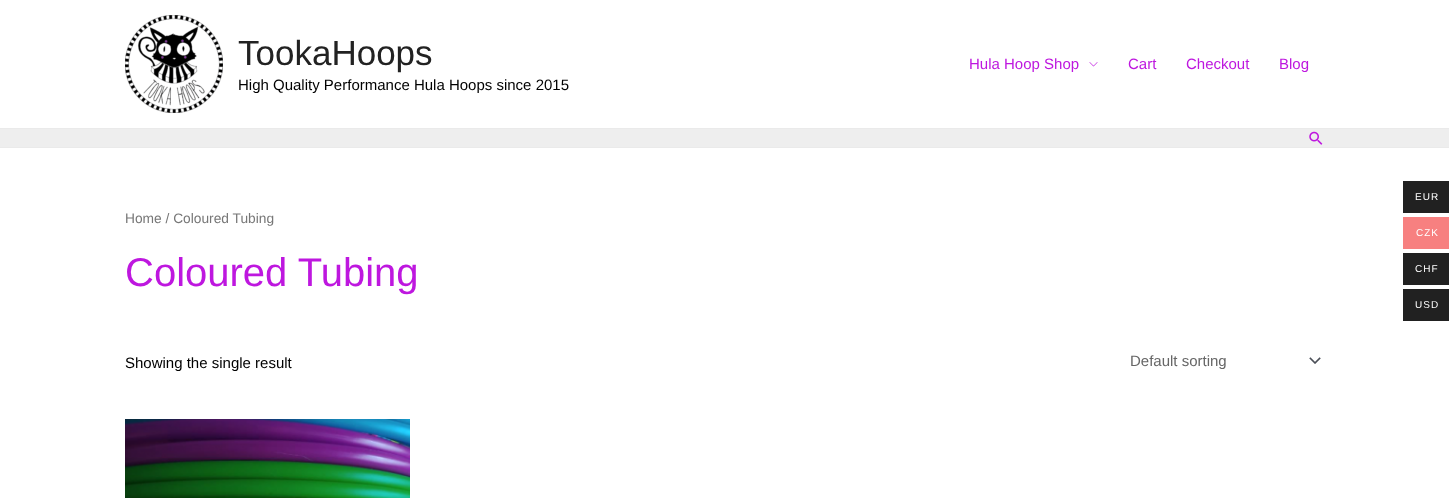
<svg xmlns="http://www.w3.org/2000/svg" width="1449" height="498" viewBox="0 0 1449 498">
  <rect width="100%" height="100%" fill="#fff"/>
  <path d="M0 128h1449v1H0z" fill="#eaeaea"/>
  <image x="125" y="15" width="98" height="98" href="img/1.png"/>
  <image x="1089" y="62" width="9" height="5" href="img/2.png"/>
  <path d="M0 129h1449v18H0z" fill="#eee"/>
  <path d="M0 147h1449v1H0z" fill="#eaeaea"/>
  <image x="1309" y="131" width="14" height="14" href="img/3.png"/>
  <image x="1309" y="357" width="12" height="7" href="img/4.png"/>
  <image x="125" y="419" width="285" height="79" href="img/5.png"/>
  <path d="M1403 181h46v32H1403z" fill="#212121"/>
  <path d="M1403 217h46v32H1403z" fill="#f78080"/>
  <path d="M1403 253h46v32H1403z" fill="#212121"/>
  <path d="M1403 289h46v32H1403z" fill="#212121"/>
  <text x="238" y="65" font-family="Liberation Sans" font-size="35" fill="#222">TookaHoops</text>
  <text x="238" y="90" font-family="Liberation Sans" font-size="15" fill="#000">High Quality Performance Hula Hoops since 2015</text>
  <g font-family="Liberation Sans" font-size="15" fill="#be17df">
    <text x="969" y="69">Hula Hoop Shop</text>
    <text x="1128" y="69">Cart</text>
    <text x="1186" y="69">Checkout</text>
    <text x="1279" y="69">Blog</text>
  </g>
  <text x="125" y="223" font-family="Liberation Sans" font-size="13.75" fill="#777">Home / Coloured Tubing</text>
  <text x="125" y="286" font-family="Liberation Sans" font-size="40" fill="#be17df">Coloured Tubing</text>
  <text x="125" y="368" font-family="Liberation Sans" font-size="15" fill="#000">Showing the single result</text>
  <text x="1130" y="366" font-family="Liberation Sans" font-size="15" fill="#666">Default sorting</text>
  <g font-family="Liberation Sans" font-size="10" letter-spacing="1" fill="#fff">
    <text x="1415" y="200">EUR</text>
    <text x="1416" y="236">CZK</text>
    <text x="1415" y="272">CHF</text>
    <text x="1415" y="308">USD</text>
  </g>
</svg>
